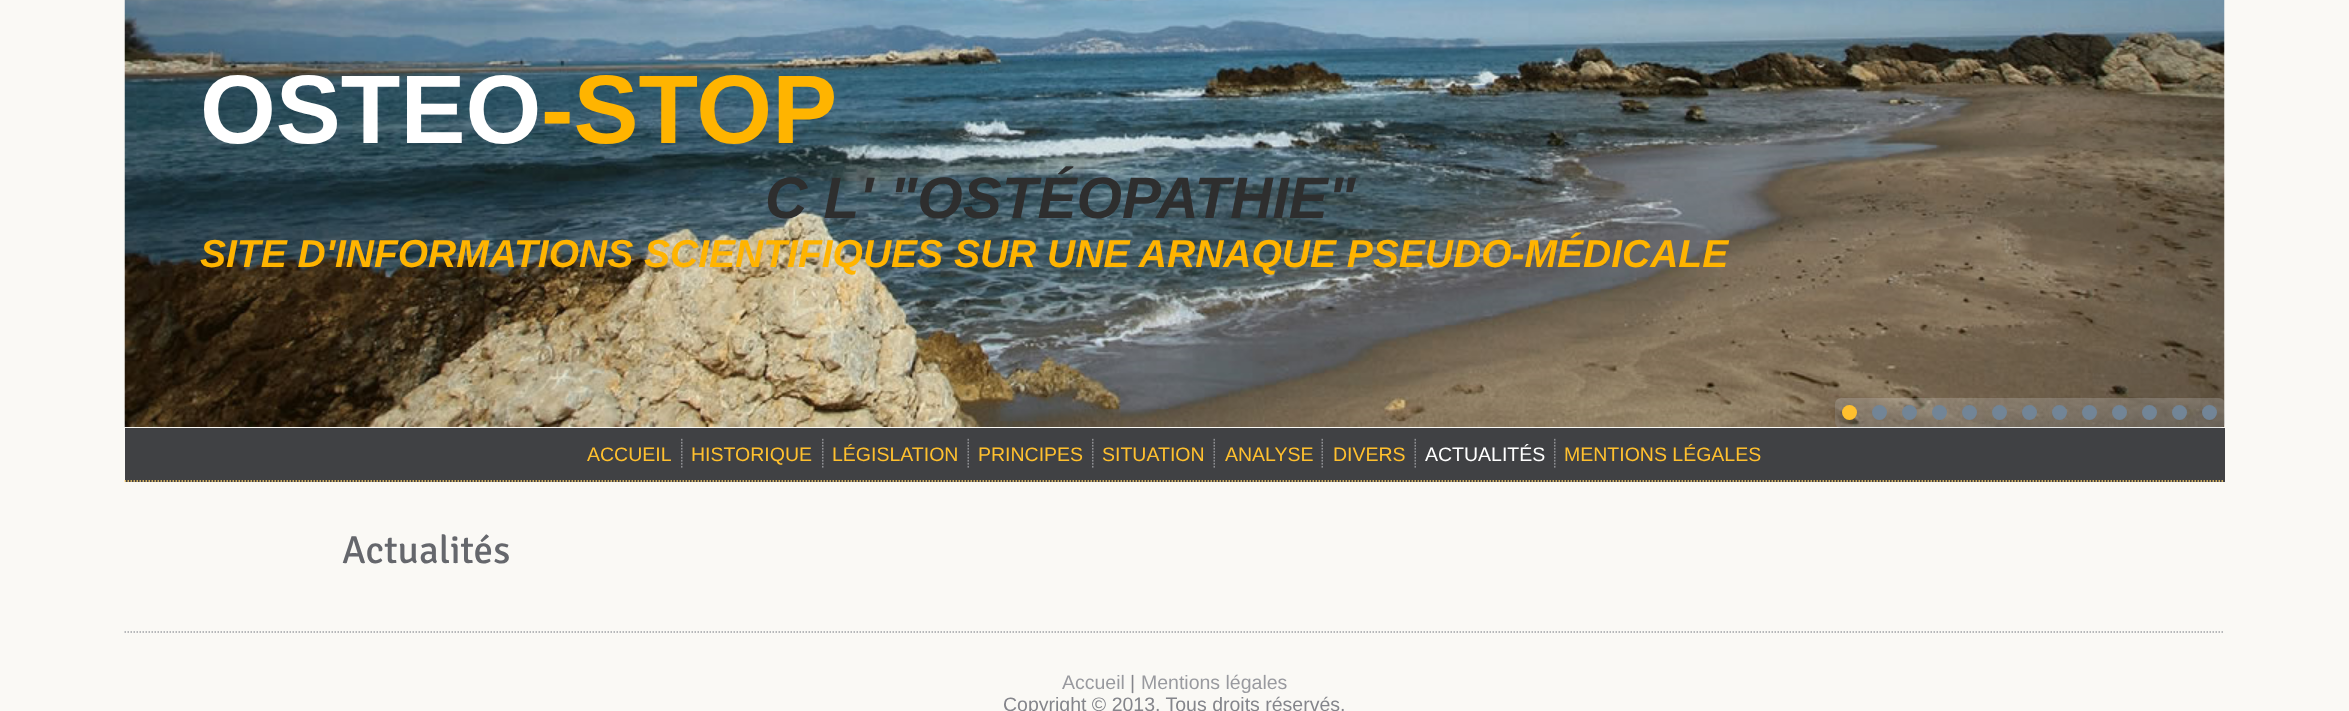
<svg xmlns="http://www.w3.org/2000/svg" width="2349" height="711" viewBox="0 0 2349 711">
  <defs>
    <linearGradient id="g1" gradientUnits="userSpaceOnUse" x1="2030" y1="398" x2="2030" y2="428"><stop offset="0" stop-color="#e8ebee" stop-opacity="0.2"/><stop offset="1" stop-color="#8a99a8" stop-opacity="0.2"/></linearGradient>
  </defs>
  <rect width="100%" height="100%" fill="#faf9f5"/>
  <image x="124" y="0" width="2101" height="427" href="img/1.png"/>
  <rect x="1835" y="398" width="390" height="30" rx="6" fill="url(#g1)"/>
  <circle cx="1849.5" cy="412.5" r="7.5" fill="#ffc02e"/>
  <circle cx="1879.5" cy="412.5" r="7.5" fill="#728597"/>
  <circle cx="1909.5" cy="412.5" r="7.5" fill="#728597"/>
  <circle cx="1939.5" cy="412.5" r="7.5" fill="#728597"/>
  <circle cx="1969.5" cy="412.5" r="7.5" fill="#728597"/>
  <circle cx="1999.5" cy="412.5" r="7.5" fill="#728597"/>
  <circle cx="2029.5" cy="412.5" r="7.5" fill="#728597"/>
  <circle cx="2059.5" cy="412.5" r="7.5" fill="#728597"/>
  <circle cx="2089.5" cy="412.5" r="7.5" fill="#728597"/>
  <circle cx="2119.5" cy="412.5" r="7.5" fill="#728597"/>
  <circle cx="2149.5" cy="412.5" r="7.5" fill="#728597"/>
  <circle cx="2179.5" cy="412.5" r="7.5" fill="#728597"/>
  <circle cx="2209.5" cy="412.5" r="7.5" fill="#728597"/>
  <path d="M125 428h2100v54H125z" fill="#404144"/>
  <path d="M124.5 481H2224.5" fill="none" stroke="#ffd36b" stroke-width="1.5" stroke-dasharray="1.5 1.5"/>
  <image x="681" y="438" width="2" height="30" href="img/2.png"/>
  <image x="822" y="438" width="2" height="30" href="img/2.png"/>
  <image x="967" y="438" width="2" height="30" href="img/3.png"/>
  <image x="1092" y="438" width="2" height="30" href="img/2.png"/>
  <image x="1213" y="438" width="2" height="30" href="img/3.png"/>
  <image x="1321" y="438" width="2" height="30" href="img/3.png"/>
  <image x="1414" y="438" width="2" height="30" href="img/3.png"/>
  <image x="1554" y="438" width="2" height="30" href="img/2.png"/>
  <path d="M124.5 632H2224.5" fill="none" stroke="#a0a2a6" stroke-width="1.5" stroke-dasharray="1.5 1.5"/>
  <text x="200" y="143" font-family="Liberation Sans" font-size="97.5" font-weight="bold" fill="#fff">OSTEO</text>
  <text x="541" y="143" font-family="Liberation Sans" font-size="97.5" font-weight="bold" fill="#ffb400">-STOP</text>
  <text x="765" y="218" font-family="Liberation Sans" font-size="58.5" font-weight="bold" font-style="italic" fill="#2e2e2e">C L' "OSTÉOPATHIE"</text>
  <text x="200" y="267" font-family="Liberation Sans" font-size="39" font-weight="bold" font-style="italic" fill="#ffb400">SITE D'INFORMATIONS SCIENTIFIQUES SUR UNE ARNAQUE PSEUDO-MÉDICALE</text>
  <g font-family="Liberation Sans" font-size="19.5" fill="#ffc02e">
    <text x="587" y="461">ACCUEIL</text>
    <text x="691" y="461">HISTORIQUE</text>
    <text x="832" y="461">LÉGISLATION</text>
    <text x="978" y="461">PRINCIPES</text>
    <text x="1102" y="461">SITUATION</text>
    <text x="1225" y="461">ANALYSE</text>
    <text x="1333" y="461">DIVERS</text>
  </g>
  <text x="1425" y="461" font-family="Liberation Sans" font-size="19.5" fill="#fff">ACTUALITÉS</text>
  <text x="1564" y="461" font-family="Liberation Sans" font-size="19.5" fill="#ffc02e">MENTIONS LÉGALES</text>
  <text x="342" y="563" font-family="Signika" font-size="39" font-weight="300" fill="#65676c">Actualités</text>
  <text x="1062" y="689" font-family="Liberation Sans" font-size="19.5" fill="#999a9f">Accueil</text>
  <text x="1130" y="689" font-family="Liberation Sans" font-size="19.5" fill="#84858b">|</text>
  <text x="1141" y="689" font-family="Liberation Sans" font-size="19.5" fill="#999a9f">Mentions légales</text>
  <text x="1003" y="711" font-family="Liberation Sans" font-size="19.5" fill="#84858b">Copyright © 2013. Tous droits réservés.</text>
</svg>
